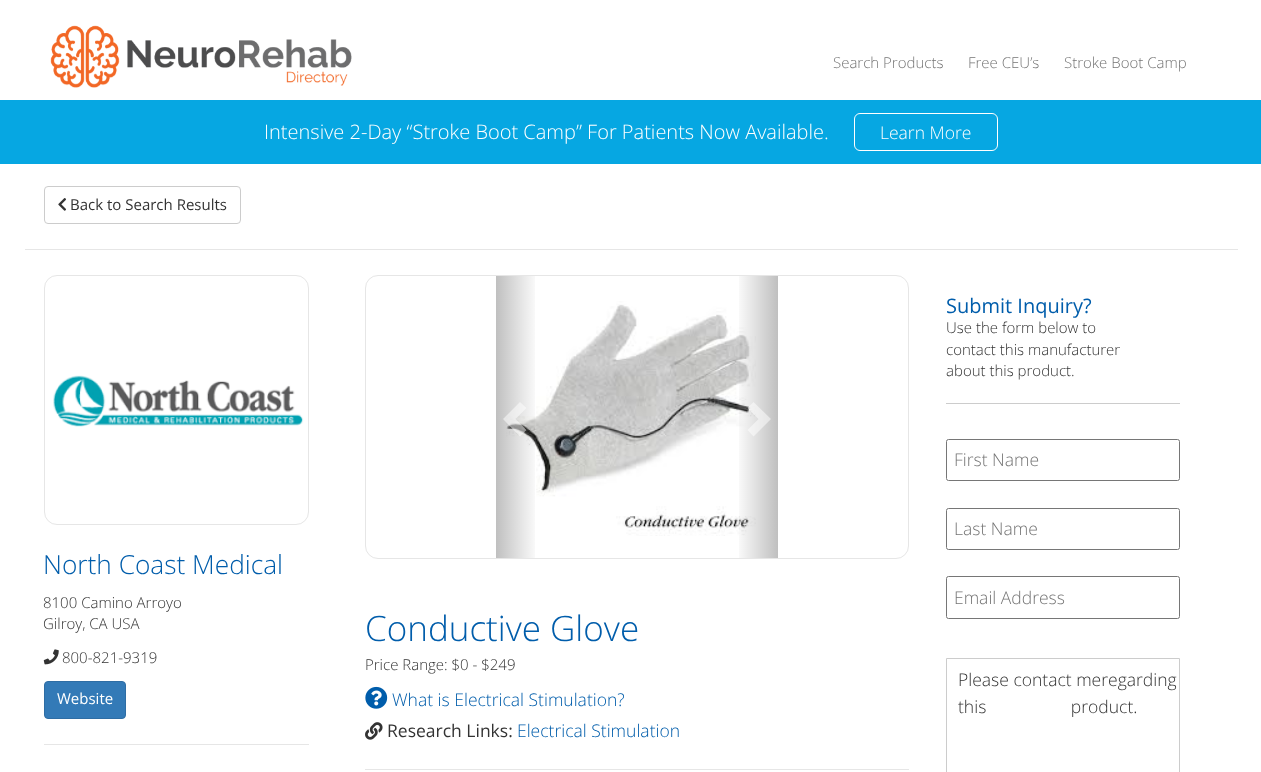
<svg xmlns="http://www.w3.org/2000/svg" width="1261" height="772" viewBox="0 0 1261 772">
  <defs>
    <linearGradient id="g1" gradientUnits="userSpaceOnUse" x1="496" y1="417" x2="539" y2="417"><stop offset="0" stop-color="#000" stop-opacity="0.25"/><stop offset="1" stop-color="#000" stop-opacity="0"/></linearGradient>
    <linearGradient id="g2" gradientUnits="userSpaceOnUse" x1="735" y1="417" x2="778" y2="417"><stop offset="0" stop-color="#000" stop-opacity="0"/><stop offset="1" stop-color="#000" stop-opacity="0.25"/></linearGradient>
  </defs>
  <rect width="100%" height="100%" fill="#fff"/>
  <image x="50" y="25" width="302" height="63" href="img/1.png"/>
  <path d="M0 100h1261v64H0z" fill="#06a7e2"/>
  <rect x="854.5" y="113.5" width="143" height="37" rx="5.5" fill="none" stroke="#fff"/>
  <path d="M25 249h1213v1H25z" fill="#e6e6e6"/>
  <rect x="44.5" y="186.5" width="196" height="37" rx="3.5" fill="none" stroke="#ccc"/>
  <image x="58" y="198" width="8" height="13" href="img/2.png"/>
  <rect x="44.5" y="275.5" width="264" height="249" rx="12.5" fill="none" stroke="#e6e6e6"/>
  <image x="53" y="375" width="251" height="52" href="img/3.png"/>
  <image x="43" y="649" width="16" height="16" href="img/4.png"/>
  <rect x="44.5" y="681.5" width="81" height="37" rx="3.5" fill="#337ab7" stroke="#2e6da4"/>
  <path d="M44 744h265v1H44z" fill="#e6e6e6"/>
  <rect x="365.5" y="275.5" width="543" height="283" rx="12.5" fill="none" stroke="#e6e6e6"/>
  <image x="506" y="301" width="250" height="235" href="img/5.png"/>
  <path d="M496 276h39v282H496z" fill="url(#g1)"/>
  <path d="M526.5 408L515.5 419L526.5 430L520 436.5L503 419L520 402Z" fill="#ffffff80"/>
  <path d="M739 276h39v282H739z" fill="url(#g2)"/>
  <path d="M771 419L753.5 436.5L747.5 430L758.5 419L747.5 408L753.5 402Z" fill="#ffffff80"/>
  <image x="365" y="686" width="23" height="23" href="img/6.png"/>
  <image x="365" y="722" width="18" height="18" href="img/7.png"/>
  <path d="M365 769h544v1H365z" fill="#e6e6e6"/>
  <path d="M946 403h234v1H946z" fill="#ccc"/>
  <rect x="946.5" y="439.5" width="233" height="41" rx="2" fill="none" stroke="#767676"/>
  <rect x="946.5" y="508.5" width="233" height="41" rx="2" fill="none" stroke="#767676"/>
  <rect x="946.5" y="576.5" width="233" height="42" rx="2" fill="none" stroke="#767676"/>
  <path d="M946.5 658.5h233v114H946.5z" fill="none" stroke="#ccc"/>
  <g font-family="Open Sans" font-size="15" font-weight="300" fill="#757575">
    <text x="833" y="68">Search Products</text>
    <text x="968" y="68">Free CEU’s</text>
    <text x="1064" y="68">Stroke Boot Camp</text>
  </g>
  <text x="264" y="139" font-family="Open Sans" font-size="20" font-weight="300" fill="#fff">Intensive 2-Day “Stroke Boot Camp” For Patients Now Available.</text>
  <text x="880" y="139" font-family="Open Sans" font-size="17.5" font-weight="300" fill="#fff">Learn More</text>
  <text x="70" y="210" font-family="Open Sans" font-size="15" fill="#333">Back to Search Results</text>
  <text x="43" y="574" font-family="Open Sans" font-size="26.25" font-weight="300" fill="#005dab">North Coast Medical</text>
  <g font-family="Open Sans" font-size="15" font-weight="300" fill="#333">
    <text x="43" y="608">8100 Camino Arroyo</text>
    <text x="43" y="629">Gilroy, CA USA</text>
    <text x="62" y="663">800-821-9319</text>
  </g>
  <text x="57" y="704" font-family="Open Sans" font-size="15" fill="#fff">Website</text>
  <text x="365" y="641" font-family="Open Sans" font-size="35" font-weight="300" fill="#005dab">Conductive Glove</text>
  <text x="365" y="670" font-family="Open Sans" font-size="15" font-weight="300" fill="#333">Price Range: $0 - $249</text>
  <text x="392" y="706" font-family="Open Sans" font-size="17.5" font-weight="300" fill="#005dab">What is Electrical Stimulation?</text>
  <text x="387" y="737" font-family="Open Sans" font-size="17.5" fill="#333">Research Links:</text>
  <text x="517" y="737" font-family="Open Sans" font-size="17.5" font-weight="300" fill="#005dab">Electrical Stimulation</text>
  <text x="946" y="313" font-family="Open Sans" font-size="20" fill="#005dab">Submit Inquiry?</text>
  <g font-family="Open Sans" font-size="15" font-weight="300" fill="#333">
    <text x="946" y="333">Use the form below to</text>
    <text x="946" y="355">contact this manufacturer</text>
    <text x="946" y="376">about this product.</text>
  </g>
  <g font-family="Open Sans" font-size="17.5" font-weight="300" fill="#757575">
    <text x="954" y="466">First Name</text>
    <text x="954" y="535">Last Name</text>
    <text x="954" y="604">Email Address</text>
  </g>
  <g font-family="Open Sans" font-size="17.5" font-weight="300" fill="#333">
    <text x="958" y="686">Please contact meregarding</text>
    <text x="958" y="713" word-spacing="80">this product.</text>
  </g>
</svg>
